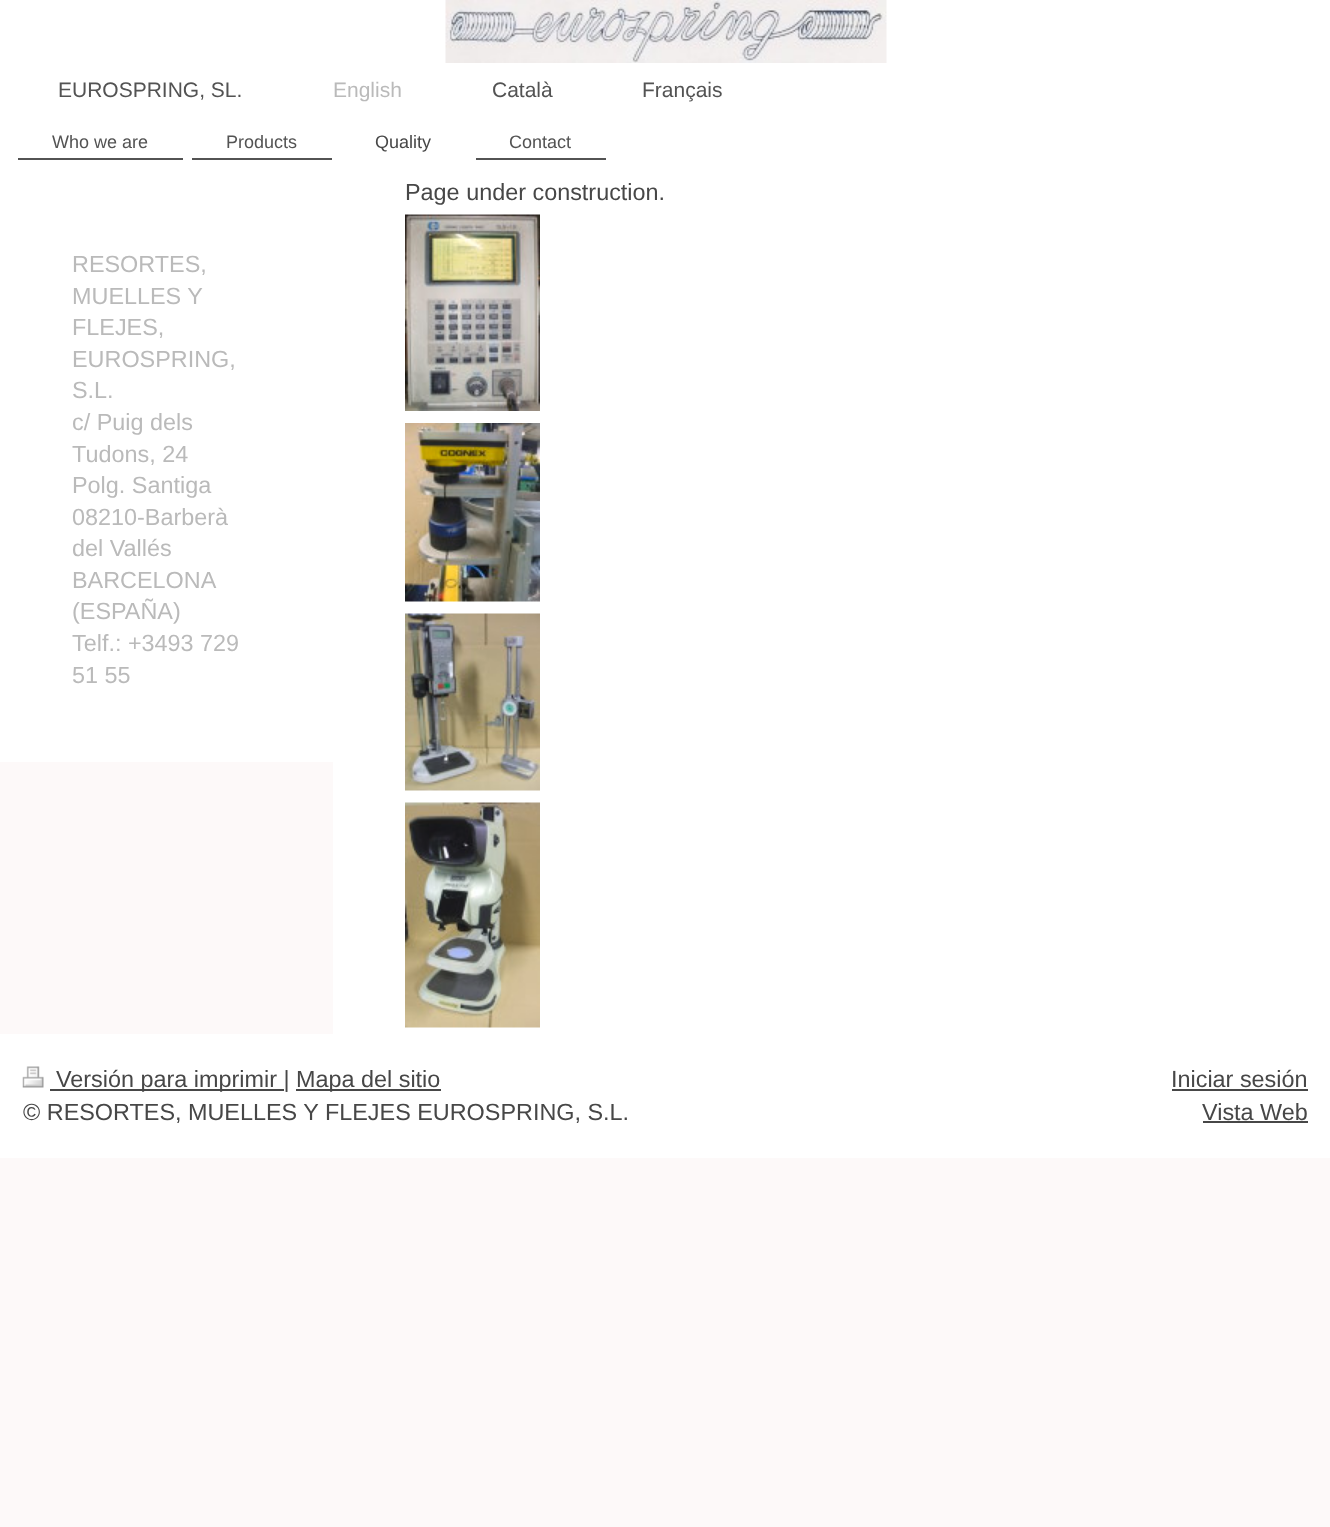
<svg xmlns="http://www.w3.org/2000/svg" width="1330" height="1527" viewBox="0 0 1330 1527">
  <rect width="100%" height="100%" fill="#fdf9f9"/>
  <path d="M0 0h1330v176H0z" fill="#fff"/>
  <image x="445" y="0" width="442" height="63" href="img/1.png"/>
  <path d="M18 158h165v2H18z" fill="#535353"/>
  <path d="M192 158h140v2H192z" fill="#535353"/>
  <path d="M476 158h130v2H476z" fill="#535353"/>
  <path d="M333 176h997v858H333z" fill="#fff"/>
  <image x="405" y="214" width="135" height="197" href="img/2.png"/>
  <image x="405" y="423" width="135" height="179" href="img/3.png"/>
  <image x="405" y="613" width="135" height="178" href="img/4.png"/>
  <image x="405" y="802" width="135" height="226" href="img/5.png"/>
  <path d="M0 176h333v586H0z" fill="#fff"/>
  <path d="M0 1034h1330v124H0z" fill="#fff"/>
  <image x="22" y="1066" width="22" height="22" href="img/6.png"/>
  <path d="M50 1089h234v2H50z" fill="#474747"/>
  <path d="M296 1089h145v2H296z" fill="#474747"/>
  <path d="M1172 1089h136v2H1172z" fill="#474747"/>
  <path d="M1203 1121h105v2H1203z" fill="#474747"/>
  <text x="58" y="97" font-family="Liberation Sans" font-size="21" fill="#535353">EUROSPRING, SL.</text>
  <text x="333" y="97" font-family="Liberation Sans" font-size="21" fill="#bababa">English</text>
  <g font-family="Liberation Sans" font-size="21" fill="#535353">
    <text x="492" y="97">Català</text>
    <text x="642" y="97">Français</text>
  </g>
  <g font-family="Liberation Sans" font-size="18" fill="#535353">
    <text x="52" y="148">Who we are</text>
    <text x="226" y="148">Products</text>
  </g>
  <text x="375" y="148" font-family="Liberation Sans" font-size="18" fill="#474747">Quality</text>
  <text x="509" y="148" font-family="Liberation Sans" font-size="18" fill="#535353">Contact</text>
  <text x="405" y="200" font-family="Liberation Sans" font-size="23.4" fill="#474747">Page under construction.</text>
  <g font-family="Liberation Sans" font-size="23.4" fill="#bababa">
    <text x="72" y="272">RESORTES,</text>
    <text x="72" y="304">MUELLES Y</text>
    <text x="72" y="335">FLEJES,</text>
    <text x="72" y="367">EUROSPRING,</text>
    <text x="72" y="398">S.L.</text>
    <text x="72" y="430">c/ Puig dels</text>
    <text x="72" y="462">Tudons, 24</text>
    <text x="72" y="493">Polg. Santiga</text>
    <text x="72" y="525">08210-Barberà</text>
    <text x="72" y="556">del Vallés</text>
    <text x="72" y="588">BARCELONA</text>
    <text x="72" y="619">(ESPAÑA)</text>
    <text x="72" y="651">Telf.: +3493 729</text>
    <text x="72" y="683">51 55</text>
  </g>
  <g font-family="Liberation Sans" font-size="23.4" fill="#474747">
    <text x="56" y="1087">Versión para imprimir |</text>
    <text x="296" y="1087">Mapa del sitio</text>
    <text x="23" y="1120">© RESORTES, MUELLES Y FLEJES EUROSPRING, S.L.</text>
    <text x="1171" y="1087">Iniciar sesión</text>
    <text x="1202" y="1120">Vista Web</text>
  </g>
</svg>
